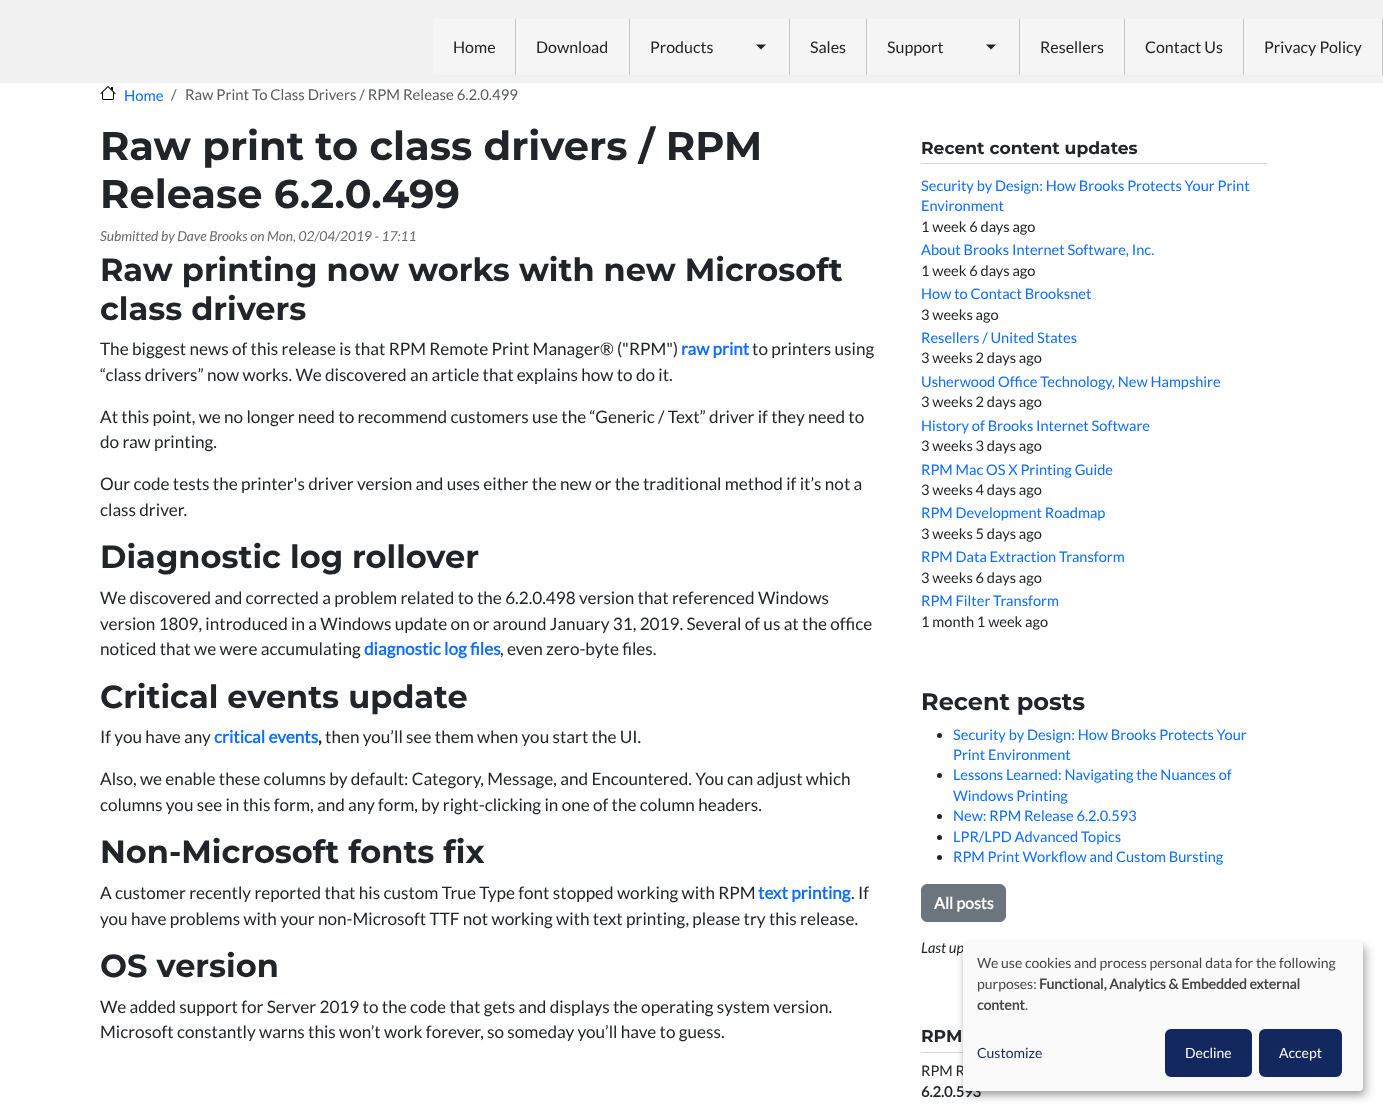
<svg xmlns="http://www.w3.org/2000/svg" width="1383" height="1111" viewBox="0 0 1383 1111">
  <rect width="100%" height="100%" fill="#fff"/>
  <path d="M0 0h1383v83H0z" fill="#f1f1f1"/>
  <path d="M433 19h949v56H433z" fill="#f5f5f5"/>
  <path d="M515 19h1v56H515z" fill="#c4c4c4"/>
  <path d="M629 19h1v56H629z" fill="#c4c4c4"/>
  <path d="M789 19h1v56H789z" fill="#c4c4c4"/>
  <path d="M756 44.5H766L761 49.5Z" fill="#222"/>
  <path d="M866 19h1v56H866z" fill="#c4c4c4"/>
  <path d="M1019 19h1v56H1019z" fill="#c4c4c4"/>
  <path d="M986 44.5H996L991 49.5Z" fill="#222"/>
  <path d="M1124 19h1v56H1124z" fill="#c4c4c4"/>
  <path d="M1243 19h1v56H1243z" fill="#c4c4c4"/>
  <path d="M1382 19h1v56H1382z" fill="#c4c4c4"/>
  <image x="100" y="86" width="16" height="14" href="img/1.png"/>
  <path d="M921 163h346v1H921z" fill="#d6d6d6"/>
  <circle cx="939.5" cy="735.5" r="2.5" fill="#212529"/>
  <circle cx="939.5" cy="775.5" r="2.5" fill="#212529"/>
  <circle cx="939.5" cy="816.5" r="2.5" fill="#212529"/>
  <circle cx="939.5" cy="837.5" r="2.5" fill="#212529"/>
  <circle cx="939.5" cy="857.5" r="2.5" fill="#212529"/>
  <rect x="921.5" y="884.5" width="84" height="37" rx="5.5" fill="#6c757d" stroke="#6c757d"/>
  <path d="M921 1052h42v1H921z" fill="#d6d6d6"/>
  <rect x="968" y="947" width="400" height="149" rx="4" fill="#00000030" filter="blur(5px)"/>
  <rect x="963" y="946" width="400" height="149" rx="4" fill="#00000033" filter="blur(3px)"/>
  <g font-family="Lato" font-size="16" fill="#222">
    <text x="453" y="53">Home</text>
    <text x="536" y="53">Download</text>
    <text x="650" y="53">Products</text>
    <text x="810" y="53">Sales</text>
    <text x="887" y="53">Support</text>
    <text x="1040" y="53">Resellers</text>
    <text x="1145" y="53">Contact Us</text>
    <text x="1264" y="53">Privacy Policy</text>
  </g>
  <text x="124" y="101" font-family="Lato" font-size="14.9" fill="#0d6efd">Home</text>
  <g font-family="Lato" font-size="14.9" fill="#595c5f">
    <text x="171" y="100">/</text>
    <text x="185" y="100">Raw Print To Class Drivers / RPM Release 6.2.0.499</text>
  </g>
  <g font-family="Montserrat" font-size="40" font-weight="bold" fill="#212529">
    <text x="100" y="160">Raw print to class drivers / RPM</text>
    <text x="100" y="208">Release 6.2.0.499</text>
  </g>
  <text x="100" y="241" font-family="Lato" font-size="13.75" font-style="italic" fill="#68696b">Submitted by Dave Brooks on Mon, 02/04/2019 - 17:11</text>
  <g font-family="Montserrat" font-size="32" font-weight="bold" fill="#212529">
    <text x="100" y="281">Raw printing now works with new Microsoft</text>
    <text x="100" y="320">class drivers</text>
  </g>
  <text x="100" y="355" font-family="Lato" font-size="17.15" fill="#212529">The biggest news of this release is that RPM Remote Print Manager® ("RPM")</text>
  <text x="681" y="355" font-family="Lato" font-size="17.15" font-weight="bold" fill="#0d6efd">raw print</text>
  <g font-family="Lato" font-size="17.15" fill="#212529">
    <text x="752" y="355">to printers using</text>
    <text x="100" y="381">“class drivers” now works. We discovered an article that explains how to do it.</text>
    <text x="100" y="423">At this point, we no longer need to recommend customers use the “Generic / Text” driver if they need to</text>
    <text x="100" y="448">do raw printing.</text>
    <text x="100" y="490">Our code tests the printer's driver version and uses either the new or the traditional method if it’s not a</text>
    <text x="100" y="516">class driver.</text>
  </g>
  <text x="100" y="568" font-family="Montserrat" font-size="32" font-weight="bold" fill="#212529">Diagnostic log rollover</text>
  <g font-family="Lato" font-size="17.15" fill="#212529">
    <text x="100" y="604">We discovered and corrected a problem related to the 6.2.0.498 version that referenced Windows</text>
    <text x="100" y="630">version 1809, introduced in a Windows update on or around January 31, 2019. Several of us at the office</text>
    <text x="100" y="655">noticed that we were accumulating</text>
  </g>
  <text x="364" y="655" font-family="Lato" font-size="17.15" font-weight="bold" fill="#0d6efd">diagnostic log files</text>
  <text x="500" y="655" font-family="Lato" font-size="17.15" fill="#212529">, even zero-byte files.</text>
  <text x="100" y="708" font-family="Montserrat" font-size="32" font-weight="bold" fill="#212529">Critical events update</text>
  <text x="100" y="743" font-family="Lato" font-size="17.15" fill="#212529">If you have any</text>
  <text x="214" y="743" font-family="Lato" font-size="17.15" font-weight="bold" fill="#0d6efd">critical events</text>
  <text x="318" y="743" font-family="Lato" font-size="17.15" font-weight="bold" fill="#212529">,</text>
  <g font-family="Lato" font-size="17.15" fill="#212529">
    <text x="325" y="743">then you’ll see them when you start the UI.</text>
    <text x="100" y="785">Also, we enable these columns by default: Category, Message, and Encountered. You can adjust which</text>
    <text x="100" y="811">columns you see in this form, and any form, by right-clicking in one of the column headers.</text>
  </g>
  <text x="100" y="863" font-family="Montserrat" font-size="32" font-weight="bold" fill="#212529">Non-Microsoft fonts fix</text>
  <text x="100" y="899" font-family="Lato" font-size="17.15" fill="#212529">A customer recently reported that his custom True Type font stopped working with RPM</text>
  <text x="758" y="899" font-family="Lato" font-size="17.15" font-weight="bold" fill="#0d6efd">text printing</text>
  <g font-family="Lato" font-size="17.15" fill="#212529">
    <text x="851" y="899">. If</text>
    <text x="100" y="925">you have problems with your non-Microsoft TTF not working with text printing, please try this release.</text>
  </g>
  <text x="100" y="977" font-family="Montserrat" font-size="32" font-weight="bold" fill="#212529">OS version</text>
  <g font-family="Lato" font-size="17.15" fill="#212529">
    <text x="100" y="1013">We added support for Server 2019 to the code that gets and displays the operating system version.</text>
    <text x="100" y="1038">Microsoft constantly warns this won’t work forever, so someday you’ll have to guess.</text>
  </g>
  <text x="921" y="154" font-family="Montserrat" font-size="17.15" font-weight="bold" fill="#212529">Recent content updates</text>
  <g font-family="Lato" font-size="14.6" fill="#0d6efd">
    <text x="921" y="191">Security by Design: How Brooks Protects Your Print</text>
    <text x="921" y="211">Environment</text>
  </g>
  <text x="921" y="232" font-family="Lato" font-size="14.6" fill="#212529">1 week 6 days ago</text>
  <text x="921" y="255" font-family="Lato" font-size="14.6" fill="#0d6efd">About Brooks Internet Software, Inc.</text>
  <text x="921" y="276" font-family="Lato" font-size="14.6" fill="#212529">1 week 6 days ago</text>
  <text x="921" y="299" font-family="Lato" font-size="14.6" fill="#0d6efd">How to Contact Brooksnet</text>
  <text x="921" y="320" font-family="Lato" font-size="14.6" fill="#212529">3 weeks ago</text>
  <text x="921" y="343" font-family="Lato" font-size="14.6" fill="#0d6efd">Resellers / United States</text>
  <text x="921" y="363" font-family="Lato" font-size="14.6" fill="#212529">3 weeks 2 days ago</text>
  <text x="921" y="387" font-family="Lato" font-size="14.6" fill="#0d6efd">Usherwood Office Technology, New Hampshire</text>
  <text x="921" y="407" font-family="Lato" font-size="14.6" fill="#212529">3 weeks 2 days ago</text>
  <text x="921" y="431" font-family="Lato" font-size="14.6" fill="#0d6efd">History of Brooks Internet Software</text>
  <text x="921" y="451" font-family="Lato" font-size="14.6" fill="#212529">3 weeks 3 days ago</text>
  <text x="921" y="475" font-family="Lato" font-size="14.6" fill="#0d6efd">RPM Mac OS X Printing Guide</text>
  <text x="921" y="495" font-family="Lato" font-size="14.6" fill="#212529">3 weeks 4 days ago</text>
  <text x="921" y="518" font-family="Lato" font-size="14.6" fill="#0d6efd">RPM Development Roadmap</text>
  <text x="921" y="539" font-family="Lato" font-size="14.6" fill="#212529">3 weeks 5 days ago</text>
  <text x="921" y="562" font-family="Lato" font-size="14.6" fill="#0d6efd">RPM Data Extraction Transform</text>
  <text x="921" y="583" font-family="Lato" font-size="14.6" fill="#212529">3 weeks 6 days ago</text>
  <text x="921" y="606" font-family="Lato" font-size="14.6" fill="#0d6efd">RPM Filter Transform</text>
  <text x="921" y="627" font-family="Lato" font-size="14.6" fill="#212529">1 month 1 week ago</text>
  <text x="921" y="710" font-family="Montserrat" font-size="24" font-weight="bold" fill="#212529">Recent posts</text>
  <g font-family="Lato" font-size="14.6" fill="#0d6efd">
    <text x="953" y="740">Security by Design: How Brooks Protects Your</text>
    <text x="953" y="760">Print Environment</text>
    <text x="953" y="780">Lessons Learned: Navigating the Nuances of</text>
    <text x="953" y="801">Windows Printing</text>
    <text x="953" y="821">New: RPM Release 6.2.0.593</text>
    <text x="953" y="842">LPR/LPD Advanced Topics</text>
    <text x="953" y="862">RPM Print Workflow and Custom Bursting</text>
  </g>
  <text x="934" y="909" font-family="Lato" font-size="16" font-weight="bold" fill="#fff">All posts</text>
  <text x="921" y="953" font-family="Lato" font-size="14.6" font-style="italic" fill="#212529">Last up</text>
  <text x="921" y="1042" font-family="Montserrat" font-size="17.15" font-weight="bold" fill="#212529">RPM</text>
  <text x="921" y="1076" font-family="Lato" font-size="14.6" fill="#212529">RPM R</text>
  <text x="921" y="1097" font-family="Lato" font-size="14.6" font-weight="bold" fill="#212529">6.2.0.593</text>
  <rect x="963" y="942" width="400" height="149" rx="4" fill="#fafafa"/>
  <g font-family="Lato" font-size="14" fill="#444">
    <text x="977" y="968">We use cookies and process personal data for the following</text>
    <text x="977" y="989">purposes:</text>
  </g>
  <g font-family="Lato" font-size="14" font-weight="bold" fill="#444">
    <text x="1039" y="989">Functional, Analytics &amp; Embedded external</text>
    <text x="977" y="1010">content</text>
  </g>
  <text x="1025" y="1010" font-family="Lato" font-size="14" fill="#444">.</text>
  <text x="977" y="1058" font-family="Lato" font-size="14" fill="#12285f">Customize</text>
  <rect x="1166.5" y="1030.5" width="84" height="45" rx="4.5" fill="#12285f" stroke="#12285f" stroke-width="3"/>
  <text x="1185" y="1058" font-family="Lato" font-size="14" fill="#fff">Decline</text>
  <rect x="1260.5" y="1030.5" width="80" height="45" rx="4.5" fill="#12285f" stroke="#12285f" stroke-width="3"/>
  <text x="1279" y="1058" font-family="Lato" font-size="14" fill="#fff">Accept</text>
</svg>
